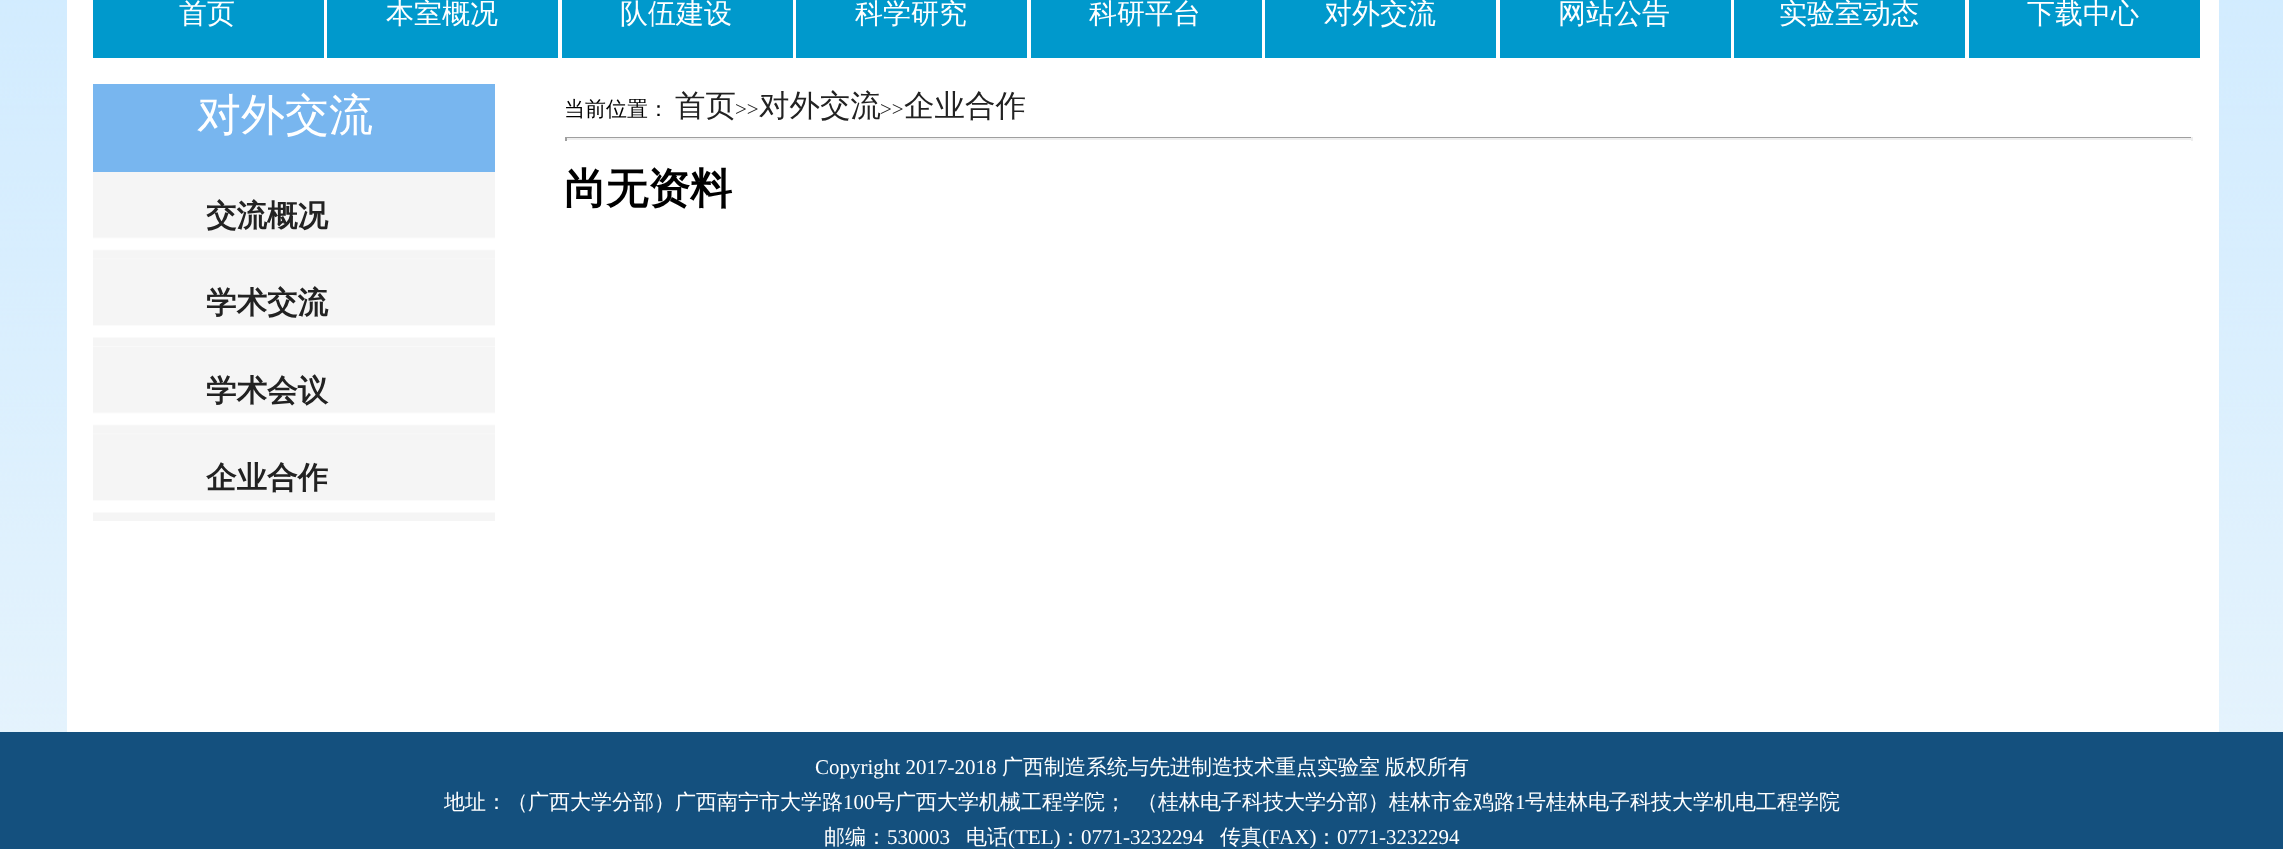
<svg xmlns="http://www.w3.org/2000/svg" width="2283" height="849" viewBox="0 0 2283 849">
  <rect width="100%" height="100%" fill="#fff"/>
  <image x="0" y="0" width="2283" height="732" href="img/1.png"/>
  <path d="M67 0h2152v697H67z" fill="#fff"/>
  <path d="M93 0h231v58H93z" fill="#09c"/>
  <path d="M327 0h231v58H327z" fill="#09c"/>
  <path d="M562 0h231v58H562z" fill="#09c"/>
  <path d="M796 0h231v58H796z" fill="#09c"/>
  <path d="M1031 0h231v58H1031z" fill="#09c"/>
  <path d="M1265 0h231v58H1265z" fill="#09c"/>
  <path d="M1500 0h231v58H1500z" fill="#09c"/>
  <path d="M1734 0h231v58H1734z" fill="#09c"/>
  <path d="M1969 0h231v58H1969z" fill="#09c"/>
  <path d="M93 84h402v88H93z" fill="#78b6ef"/>
  <image x="93" y="172" width="402" height="87" href="img/2.png"/>
  <image x="93" y="259" width="402" height="87" href="img/3.png"/>
  <image x="93" y="346" width="402" height="88" href="img/4.png"/>
  <image x="93" y="434" width="402" height="87" href="img/3.png"/>
  <path d="M565 137h1628v1H565z" fill="#9f9f9f"/>
  <path d="M2191 137h2v4H2191z" fill="#eee"/>
  <path d="M565 138h1628v2H565z" fill="#eee"/>
  <path d="M565 137h2v4H565z" fill="#9f9f9f"/>
  <path d="M67 697h2152v35H67z" fill="#fff"/>
  <path d="M0 732h2283v117H0z" fill="#14507e"/>
  <g font-family="WenQuanYi Zen Hei" font-size="28" font-weight="500" fill="#fff">
    <text x="179" y="23">首页</text>
    <text x="386" y="23">本室概况</text>
    <text x="620" y="23">队伍建设</text>
    <text x="855" y="23">科学研究</text>
    <text x="1089" y="23">科研平台</text>
    <text x="1324" y="23">对外交流</text>
    <text x="1558" y="23">网站公告</text>
    <text x="1779" y="23">实验室动态</text>
    <text x="2027" y="23">下载中心</text>
  </g>
  <text x="197" y="130" font-family="WenQuanYi Zen Hei" font-size="44" font-weight="500" fill="#fff">对外交流</text>
  <g font-family="WenQuanYi Zen Hei" font-size="30.5" font-weight="bold" fill="#222">
    <text x="206" y="226">交流概况</text>
    <text x="206" y="313">学术交流</text>
    <text x="206" y="401">学术会议</text>
    <text x="206" y="488">企业合作</text>
  </g>
  <text x="564" y="116" font-family="WenQuanYi Zen Hei" font-size="21" font-weight="500" fill="#000">当前位置：</text>
  <text x="675" y="116" font-family="WenQuanYi Zen Hei" font-size="30.5" font-weight="500" fill="#222">首页</text>
  <text x="735" y="116" font-family="Liberation Serif" font-size="21" fill="#222">&gt;&gt;</text>
  <text x="759" y="116" font-family="WenQuanYi Zen Hei" font-size="30.5" font-weight="500" fill="#222">对外交流</text>
  <text x="880" y="116" font-family="Liberation Serif" font-size="21" fill="#222">&gt;&gt;</text>
  <text x="904" y="116" font-family="WenQuanYi Zen Hei" font-size="30.5" font-weight="500" fill="#222">企业合作</text>
  <text x="564" y="203" font-family="WenQuanYi Zen Hei" font-size="42" font-weight="bold" fill="#000">尚无资料</text>
  <text x="815" y="774" font-family="Liberation Serif" font-size="21" fill="#fff">Copyright 2017-2018</text>
  <g font-family="WenQuanYi Zen Hei" font-size="21" font-weight="500" fill="#fff">
    <text x="1002" y="774">广西制造系统与先进制造技术重点实验室</text>
    <text x="1385" y="774">版权所有</text>
    <text x="444" y="809">地址：（广西大学分部）广西南宁市大学路</text>
  </g>
  <text x="843" y="809" font-family="Liberation Serif" font-size="21" fill="#fff">100</text>
  <g font-family="WenQuanYi Zen Hei" font-size="21" font-weight="500" fill="#fff">
    <text x="874" y="809">号广西大学机械工程学院；</text>
    <text x="1137" y="809">（桂林电子科技大学分部）桂林市金鸡路</text>
  </g>
  <text x="1515" y="809" font-family="Liberation Serif" font-size="21" fill="#fff">1</text>
  <g font-family="WenQuanYi Zen Hei" font-size="21" font-weight="500" fill="#fff">
    <text x="1525" y="809">号桂林电子科技大学机电工程学院</text>
    <text x="824" y="844">邮编：</text>
  </g>
  <text x="887" y="844" font-family="Liberation Serif" font-size="21" fill="#fff">530003</text>
  <text x="966" y="844" font-family="WenQuanYi Zen Hei" font-size="21" font-weight="500" fill="#fff">电话</text>
  <text x="1008" y="844" font-family="Liberation Serif" font-size="21" fill="#fff">(TEL)</text>
  <text x="1060" y="844" font-family="WenQuanYi Zen Hei" font-size="21" font-weight="500" fill="#fff">：</text>
  <text x="1081" y="844" font-family="Liberation Serif" font-size="21" fill="#fff">0771-3232294</text>
  <text x="1220" y="844" font-family="WenQuanYi Zen Hei" font-size="21" font-weight="500" fill="#fff">传真</text>
  <text x="1262" y="844" font-family="Liberation Serif" font-size="21" fill="#fff">(FAX)</text>
  <text x="1316" y="844" font-family="WenQuanYi Zen Hei" font-size="21" font-weight="500" fill="#fff">：</text>
  <text x="1337" y="844" font-family="Liberation Serif" font-size="21" fill="#fff">0771-3232294</text>
</svg>
